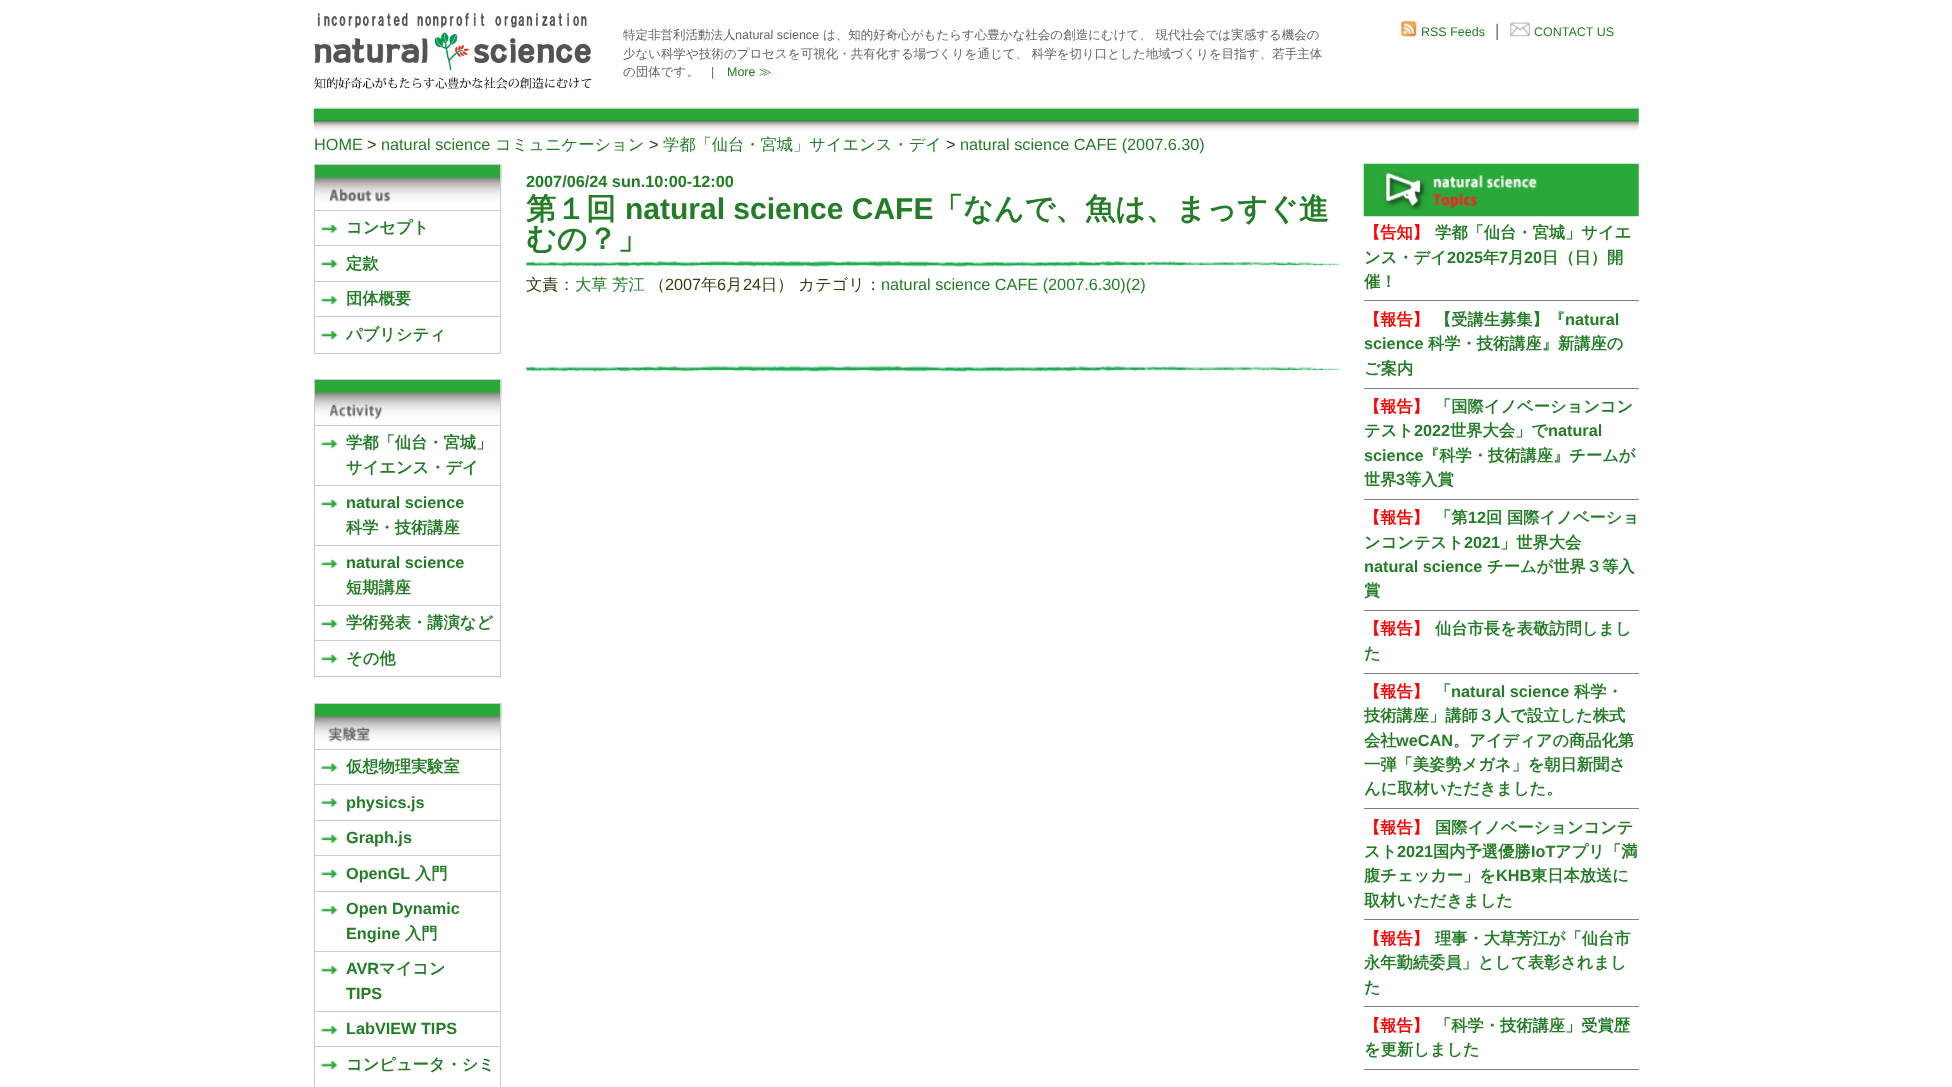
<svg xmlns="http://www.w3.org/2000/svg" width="1952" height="1087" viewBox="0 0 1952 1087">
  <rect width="100%" height="100%" fill="#fff"/>
  <image x="313" y="13" width="279" height="76" href="img/1.png"/>
  <image x="1401" y="21" width="16" height="16" href="img/2.png"/>
  <image x="1510" y="22" width="20" height="15" href="img/3.png"/>
  <image x="313" y="107" width="1326" height="24" href="img/4.png"/>
  <image x="315" y="165" width="187" height="37" href="img/5.png"/>
  <path d="M314 164h187v1H314z" fill="#ccc"/>
  <path d="M500 164h1v190H500z" fill="#ccc"/>
  <path d="M314 164h1v190H314z" fill="#ccc"/>
  <path d="M315 210h185v1H315z" fill="#ccc"/>
  <path d="M315 245h185v1H315z" fill="#ccc"/>
  <image x="321" y="224" width="17" height="10" href="img/6.png"/>
  <path d="M315 281h185v1H315z" fill="#ccc"/>
  <image x="321" y="259" width="17" height="10" href="img/6.png"/>
  <path d="M315 316h185v1H315z" fill="#ccc"/>
  <image x="321" y="295" width="17" height="10" href="img/7.png"/>
  <path d="M315 353h185v1H315z" fill="#ccc"/>
  <image x="321" y="330" width="17" height="10" href="img/7.png"/>
  <image x="315" y="380" width="187" height="40" href="img/8.png"/>
  <path d="M314 379h187v1H314z" fill="#ccc"/>
  <path d="M500 379h1v299H500z" fill="#ccc"/>
  <path d="M314 379h1v299H314z" fill="#ccc"/>
  <path d="M315 425h185v1H315z" fill="#ccc"/>
  <path d="M315 485h185v1H315z" fill="#ccc"/>
  <image x="321" y="439" width="17" height="10" href="img/6.png"/>
  <path d="M315 545h185v1H315z" fill="#ccc"/>
  <image x="321" y="499" width="17" height="10" href="img/6.png"/>
  <path d="M315 605h185v1H315z" fill="#ccc"/>
  <image x="321" y="559" width="17" height="10" href="img/6.png"/>
  <path d="M315 640h185v1H315z" fill="#ccc"/>
  <image x="321" y="619" width="17" height="10" href="img/6.png"/>
  <path d="M315 676h185v1H315z" fill="#ccc"/>
  <image x="321" y="654" width="17" height="10" href="img/6.png"/>
  <image x="315" y="703" width="187" height="39" href="img/9.png"/>
  <path d="M314 703h187v1H314z" fill="#ccc"/>
  <path d="M500 703h1v384H500z" fill="#ccc"/>
  <path d="M314 703h1v384H314z" fill="#ccc"/>
  <path d="M315 749h185v1H315z" fill="#ccc"/>
  <path d="M315 784h185v1H315z" fill="#ccc"/>
  <image x="321" y="762" width="17" height="11" href="img/10.png"/>
  <path d="M315 820h185v1H315z" fill="#ccc"/>
  <image x="321" y="797" width="17" height="11" href="img/10.png"/>
  <path d="M315 855h185v1H315z" fill="#ccc"/>
  <image x="321" y="834" width="17" height="10" href="img/6.png"/>
  <path d="M315 891h185v1H315z" fill="#ccc"/>
  <image x="321" y="869" width="17" height="10" href="img/6.png"/>
  <path d="M315 951h185v1H315z" fill="#ccc"/>
  <image x="321" y="905" width="17" height="10" href="img/7.png"/>
  <path d="M315 1011h185v1H315z" fill="#ccc"/>
  <image x="321" y="965" width="17" height="10" href="img/7.png"/>
  <path d="M315 1046h185v1H315z" fill="#ccc"/>
  <image x="321" y="1025" width="17" height="10" href="img/11.png"/>
  <image x="321" y="1060" width="17" height="10" href="img/7.png"/>
  <image x="526" y="261" width="813" height="6" href="img/12.png"/>
  <image x="526" y="366" width="813" height="6" href="img/12.png"/>
  <image x="1363" y="163" width="276" height="54" href="img/13.png"/>
  <path d="M1364 300h275v1H1364z" fill="#808080"/>
  <path d="M1364 388h275v1H1364z" fill="#808080"/>
  <path d="M1364 499h275v1H1364z" fill="#808080"/>
  <path d="M1364 610h275v1H1364z" fill="#808080"/>
  <path d="M1364 673h275v1H1364z" fill="#808080"/>
  <path d="M1364 808h275v1H1364z" fill="#808080"/>
  <path d="M1364 919h275v1H1364z" fill="#808080"/>
  <path d="M1364 1006h275v1H1364z" fill="#808080"/>
  <path d="M1364 1069h275v1H1364z" fill="#808080"/>
  <text x="623" y="39" font-family="WenQuanYi Zen Hei" font-size="12.5" font-weight="500" fill="#666">特定非営利活動法人</text>
  <text x="735" y="39" font-family="Liberation Sans" font-size="12.5" fill="#666">natural science</text>
  <g font-family="WenQuanYi Zen Hei" font-size="12.5" font-weight="500" fill="#666">
    <text x="823" y="39">は、知的好奇心がもたらす心豊かな社会の創造にむけて、 現代社会では実感する機会の</text>
    <text x="623" y="58">少ない科学や技術のプロセスを可視化・共有化する場づくりを通じて、 科学を切り口とした地域づくりを目指す、若手主体</text>
    <text x="623" y="76">の団体です。</text>
  </g>
  <text x="711" y="76" font-family="Liberation Sans" font-size="12.5" fill="#666">|</text>
  <text x="727" y="76" font-family="Liberation Sans" font-size="12.5" fill="#237d26">More</text>
  <text x="759" y="76" font-family="WenQuanYi Zen Hei" font-size="12.5" font-weight="500" fill="#237d26">≫</text>
  <text x="1421" y="36" font-family="Liberation Sans" font-size="12.5" fill="#237d26">RSS Feeds</text>
  <text x="1489" y="36" font-family="WenQuanYi Zen Hei" font-size="16.25" font-weight="500" fill="#303e10">｜</text>
  <text x="1534" y="36" font-family="Liberation Sans" font-size="12.5" fill="#237d26">CONTACT US</text>
  <text x="314" y="150" font-family="Liberation Sans" font-size="16.25" fill="#237d26">HOME</text>
  <text x="367" y="150" font-family="Liberation Sans" font-size="16.25" fill="#303e10">&gt;</text>
  <text x="381" y="150" font-family="Liberation Sans" font-size="16.25" fill="#237d26">natural science</text>
  <text x="495" y="150" font-family="WenQuanYi Zen Hei" font-size="16.25" font-weight="500" fill="#237d26">コミュニケーション</text>
  <text x="649" y="150" font-family="Liberation Sans" font-size="16.25" fill="#303e10">&gt;</text>
  <text x="663" y="150" font-family="WenQuanYi Zen Hei" font-size="16.25" font-weight="500" fill="#237d26">学都「仙台・宮城」サイエンス・デイ</text>
  <text x="946" y="150" font-family="Liberation Sans" font-size="16.25" fill="#303e10">&gt;</text>
  <text x="960" y="150" font-family="Liberation Sans" font-size="16.25" fill="#237d26">natural science CAFE (2007.6.30)</text>
  <g font-family="WenQuanYi Zen Hei" font-size="16.25" font-weight="bold" fill="#237d26">
    <text x="346" y="233">コンセプト</text>
    <text x="346" y="269">定款</text>
    <text x="346" y="304">団体概要</text>
    <text x="346" y="340">パブリシティ</text>
    <text x="346" y="448">学都「仙台・宮城」</text>
    <text x="346" y="473">サイエンス・デイ</text>
  </g>
  <text x="346" y="508" font-family="Liberation Sans" font-size="16.25" font-weight="bold" fill="#237d26">natural science</text>
  <text x="346" y="533" font-family="WenQuanYi Zen Hei" font-size="16.25" font-weight="bold" fill="#237d26">科学・技術講座</text>
  <text x="346" y="568" font-family="Liberation Sans" font-size="16.25" font-weight="bold" fill="#237d26">natural science</text>
  <g font-family="WenQuanYi Zen Hei" font-size="16.25" font-weight="bold" fill="#237d26">
    <text x="346" y="593">短期講座</text>
    <text x="346" y="628">学術発表・講演など</text>
    <text x="346" y="664">その他</text>
    <text x="346" y="772">仮想物理実験室</text>
  </g>
  <g font-family="Liberation Sans" font-size="16.25" font-weight="bold" fill="#237d26">
    <text x="346" y="808">physics.js</text>
    <text x="346" y="843">Graph.js</text>
    <text x="346" y="879">OpenGL</text>
  </g>
  <text x="415" y="879" font-family="WenQuanYi Zen Hei" font-size="16.25" font-weight="bold" fill="#237d26">入門</text>
  <g font-family="Liberation Sans" font-size="16.25" font-weight="bold" fill="#237d26">
    <text x="346" y="914">Open Dynamic</text>
    <text x="346" y="939">Engine</text>
  </g>
  <text x="405" y="939" font-family="WenQuanYi Zen Hei" font-size="16.25" font-weight="bold" fill="#237d26">入門</text>
  <text x="346" y="974" font-family="Liberation Sans" font-size="16.25" font-weight="bold" fill="#237d26">AVR</text>
  <text x="379" y="974" font-family="WenQuanYi Zen Hei" font-size="16.25" font-weight="bold" fill="#237d26">マイコン</text>
  <g font-family="Liberation Sans" font-size="16.25" font-weight="bold" fill="#237d26">
    <text x="346" y="999">TIPS</text>
    <text x="346" y="1034">LabVIEW TIPS</text>
  </g>
  <text x="346" y="1070" font-family="WenQuanYi Zen Hei" font-size="16.25" font-weight="bold" fill="#237d26">コンピュータ・シミ</text>
  <text x="526" y="187" font-family="Liberation Sans" font-size="16.25" font-weight="bold" fill="#237d26">2007/06/24 sun.10:00-12:00</text>
  <text x="526" y="219" font-family="WenQuanYi Zen Hei" font-size="30" font-weight="bold" fill="#237d26">第１回</text>
  <text x="625" y="219" font-family="Liberation Sans" font-size="30" font-weight="bold" fill="#237d26">natural science CAFE</text>
  <g font-family="WenQuanYi Zen Hei" font-size="30" font-weight="bold" fill="#237d26">
    <text x="933" y="219">「なんで、魚は、まっすぐ進</text>
    <text x="526" y="249">むの？」</text>
  </g>
  <text x="526" y="290" font-family="WenQuanYi Zen Hei" font-size="16.25" font-weight="500" fill="#303e10">文責：</text>
  <text x="575" y="290" font-family="WenQuanYi Zen Hei" font-size="16.25" font-weight="500" fill="#237d26">大草 芳江</text>
  <text x="649" y="290" font-family="WenQuanYi Zen Hei" font-size="16.25" font-weight="500" fill="#303e10">（</text>
  <text x="665" y="290" font-family="Liberation Sans" font-size="16.25" fill="#303e10">2007</text>
  <text x="701" y="290" font-family="WenQuanYi Zen Hei" font-size="16.25" font-weight="500" fill="#303e10">年</text>
  <text x="717" y="290" font-family="Liberation Sans" font-size="16.25" fill="#303e10">6</text>
  <text x="726" y="290" font-family="WenQuanYi Zen Hei" font-size="16.25" font-weight="500" fill="#303e10">月</text>
  <text x="743" y="290" font-family="Liberation Sans" font-size="16.25" fill="#303e10">24</text>
  <text x="761" y="290" font-family="WenQuanYi Zen Hei" font-size="16.25" font-weight="500" fill="#303e10">日） カテゴリ：</text>
  <text x="881" y="290" font-family="Liberation Sans" font-size="16.25" fill="#237d26">natural science CAFE (2007.6.30)(2)</text>
  <text x="1364" y="238" font-family="WenQuanYi Zen Hei" font-size="16.25" font-weight="bold" fill="#f00">【告知】</text>
  <g font-family="WenQuanYi Zen Hei" font-size="16.25" font-weight="bold" fill="#237d26">
    <text x="1435" y="238">学都「仙台・宮城」サイエ</text>
    <text x="1364" y="263">ンス・デイ</text>
  </g>
  <text x="1447" y="263" font-family="Liberation Sans" font-size="16.25" font-weight="bold" fill="#237d26">2025</text>
  <text x="1483" y="263" font-family="WenQuanYi Zen Hei" font-size="16.25" font-weight="bold" fill="#237d26">年</text>
  <text x="1499" y="263" font-family="Liberation Sans" font-size="16.25" font-weight="bold" fill="#237d26">7</text>
  <text x="1508" y="263" font-family="WenQuanYi Zen Hei" font-size="16.25" font-weight="bold" fill="#237d26">月</text>
  <text x="1524" y="263" font-family="Liberation Sans" font-size="16.25" font-weight="bold" fill="#237d26">20</text>
  <g font-family="WenQuanYi Zen Hei" font-size="16.25" font-weight="bold" fill="#237d26">
    <text x="1542" y="263">日（日）開</text>
    <text x="1364" y="287">催！</text>
  </g>
  <text x="1364" y="325" font-family="WenQuanYi Zen Hei" font-size="16.25" font-weight="bold" fill="#f00">【報告】</text>
  <text x="1435" y="325" font-family="WenQuanYi Zen Hei" font-size="16.25" font-weight="bold" fill="#237d26">【受講生募集】『</text>
  <g font-family="Liberation Sans" font-size="16.25" font-weight="bold" fill="#237d26">
    <text x="1565" y="325">natural</text>
    <text x="1364" y="349">science</text>
  </g>
  <g font-family="WenQuanYi Zen Hei" font-size="16.25" font-weight="bold" fill="#237d26">
    <text x="1428" y="349">科学・技術講座』新講座の</text>
    <text x="1364" y="374">ご案内</text>
  </g>
  <text x="1364" y="412" font-family="WenQuanYi Zen Hei" font-size="16.25" font-weight="bold" fill="#f00">【報告】</text>
  <g font-family="WenQuanYi Zen Hei" font-size="16.25" font-weight="bold" fill="#237d26">
    <text x="1435" y="412">「国際イノベーションコン</text>
    <text x="1364" y="436">テスト</text>
  </g>
  <text x="1414" y="436" font-family="Liberation Sans" font-size="16.25" font-weight="bold" fill="#237d26">2022</text>
  <text x="1450" y="436" font-family="WenQuanYi Zen Hei" font-size="16.25" font-weight="bold" fill="#237d26">世界大会」で</text>
  <g font-family="Liberation Sans" font-size="16.25" font-weight="bold" fill="#237d26">
    <text x="1548" y="436">natural</text>
    <text x="1364" y="461">science</text>
  </g>
  <g font-family="WenQuanYi Zen Hei" font-size="16.25" font-weight="bold" fill="#237d26">
    <text x="1423" y="461">『科学・技術講座』チームが</text>
    <text x="1364" y="485">世界</text>
  </g>
  <text x="1396" y="485" font-family="Liberation Sans" font-size="16.25" font-weight="bold" fill="#237d26">3</text>
  <text x="1405" y="485" font-family="WenQuanYi Zen Hei" font-size="16.25" font-weight="bold" fill="#237d26">等入賞</text>
  <text x="1364" y="523" font-family="WenQuanYi Zen Hei" font-size="16.25" font-weight="bold" fill="#f00">【報告】</text>
  <text x="1435" y="523" font-family="WenQuanYi Zen Hei" font-size="16.25" font-weight="bold" fill="#237d26">「第</text>
  <text x="1468" y="523" font-family="Liberation Sans" font-size="16.25" font-weight="bold" fill="#237d26">12</text>
  <g font-family="WenQuanYi Zen Hei" font-size="16.25" font-weight="bold" fill="#237d26">
    <text x="1486" y="523">回 国際イノベーショ</text>
    <text x="1364" y="548">ンコンテスト</text>
  </g>
  <text x="1464" y="548" font-family="Liberation Sans" font-size="16.25" font-weight="bold" fill="#237d26">2021</text>
  <text x="1500" y="548" font-family="WenQuanYi Zen Hei" font-size="16.25" font-weight="bold" fill="#237d26">」世界大会</text>
  <text x="1364" y="572" font-family="Liberation Sans" font-size="16.25" font-weight="bold" fill="#237d26">natural science</text>
  <g font-family="WenQuanYi Zen Hei" font-size="16.25" font-weight="bold" fill="#237d26">
    <text x="1487" y="572">チームが世界３等入</text>
    <text x="1364" y="596">賞</text>
  </g>
  <text x="1364" y="634" font-family="WenQuanYi Zen Hei" font-size="16.25" font-weight="bold" fill="#f00">【報告】</text>
  <g font-family="WenQuanYi Zen Hei" font-size="16.25" font-weight="bold" fill="#237d26">
    <text x="1435" y="634">仙台市長を表敬訪問しまし</text>
    <text x="1364" y="659">た</text>
  </g>
  <text x="1364" y="697" font-family="WenQuanYi Zen Hei" font-size="16.25" font-weight="bold" fill="#f00">【報告】</text>
  <text x="1435" y="697" font-family="WenQuanYi Zen Hei" font-size="16.25" font-weight="bold" fill="#237d26">「</text>
  <text x="1451" y="697" font-family="Liberation Sans" font-size="16.25" font-weight="bold" fill="#237d26">natural science</text>
  <g font-family="WenQuanYi Zen Hei" font-size="16.25" font-weight="bold" fill="#237d26">
    <text x="1574" y="697">科学・</text>
    <text x="1364" y="721">技術講座」講師３人で設立した株式</text>
    <text x="1364" y="746">会社</text>
  </g>
  <text x="1396" y="746" font-family="Liberation Sans" font-size="16.25" font-weight="bold" fill="#237d26">weCAN</text>
  <g font-family="WenQuanYi Zen Hei" font-size="16.25" font-weight="bold" fill="#237d26">
    <text x="1453" y="746">。アイディアの商品化第</text>
    <text x="1364" y="770">一弾「美姿勢メガネ」を朝日新聞さ</text>
    <text x="1364" y="794">んに取材いただきました。</text>
  </g>
  <text x="1364" y="833" font-family="WenQuanYi Zen Hei" font-size="16.25" font-weight="bold" fill="#f00">【報告】</text>
  <g font-family="WenQuanYi Zen Hei" font-size="16.25" font-weight="bold" fill="#237d26">
    <text x="1435" y="833">国際イノベーションコンテ</text>
    <text x="1364" y="857">スト</text>
  </g>
  <text x="1397" y="857" font-family="Liberation Sans" font-size="16.25" font-weight="bold" fill="#237d26">2021</text>
  <text x="1433" y="857" font-family="WenQuanYi Zen Hei" font-size="16.25" font-weight="bold" fill="#237d26">国内予選優勝</text>
  <text x="1531" y="857" font-family="Liberation Sans" font-size="16.25" font-weight="bold" fill="#237d26">IoT</text>
  <g font-family="WenQuanYi Zen Hei" font-size="16.25" font-weight="bold" fill="#237d26">
    <text x="1555" y="857">アプリ「満</text>
    <text x="1364" y="881">腹チェッカー」を</text>
  </g>
  <text x="1496" y="881" font-family="Liberation Sans" font-size="16.25" font-weight="bold" fill="#237d26">KHB</text>
  <g font-family="WenQuanYi Zen Hei" font-size="16.25" font-weight="bold" fill="#237d26">
    <text x="1531" y="881">東日本放送に</text>
    <text x="1364" y="906">取材いただきました</text>
  </g>
  <text x="1364" y="944" font-family="WenQuanYi Zen Hei" font-size="16.25" font-weight="bold" fill="#f00">【報告】</text>
  <g font-family="WenQuanYi Zen Hei" font-size="16.25" font-weight="bold" fill="#237d26">
    <text x="1435" y="944">理事・大草芳江が「仙台市</text>
    <text x="1364" y="968">永年勤続委員」として表彰されまし</text>
    <text x="1364" y="993">た</text>
  </g>
  <text x="1364" y="1031" font-family="WenQuanYi Zen Hei" font-size="16.25" font-weight="bold" fill="#f00">【報告】</text>
  <g font-family="WenQuanYi Zen Hei" font-size="16.25" font-weight="bold" fill="#237d26">
    <text x="1435" y="1031">「科学・技術講座」受賞歴</text>
    <text x="1364" y="1055">を更新しました</text>
  </g>
</svg>
